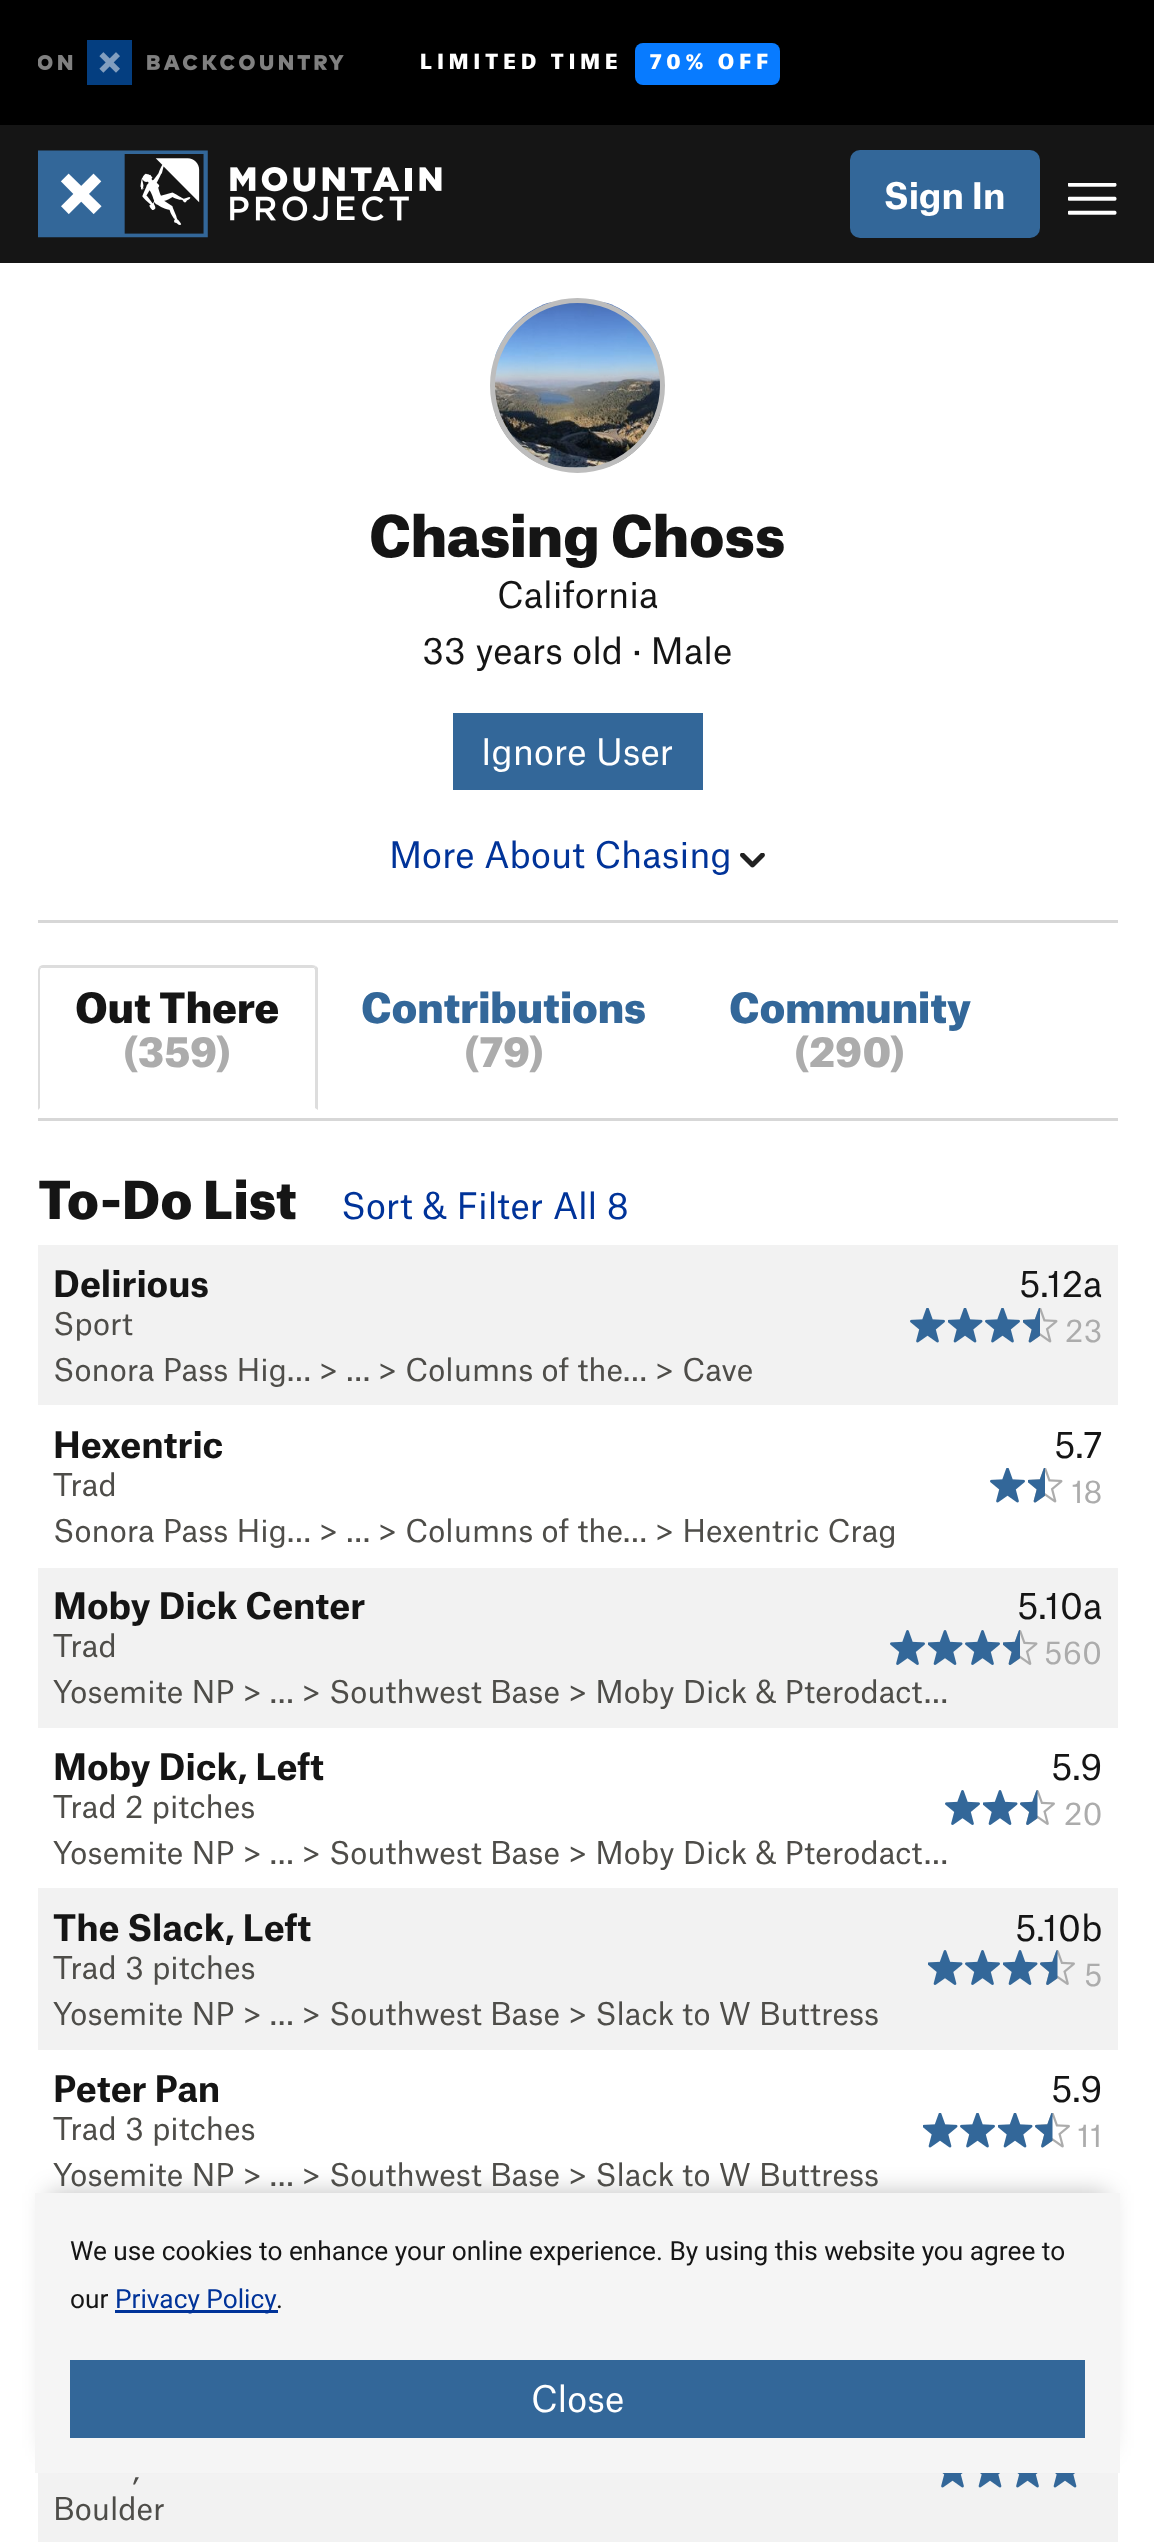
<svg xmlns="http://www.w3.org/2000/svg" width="1154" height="2542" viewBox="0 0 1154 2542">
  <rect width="100%" height="100%" fill="#fff"/>
  <path d="M0 125h1154v138H0z" fill="#151515"/>
  <path d="M0 0h1154v125H0z" fill="#000"/>
  <image x="38" y="40" width="306" height="45" href="img/1.png"/>
  <rect x="635" y="43" width="145" height="42" rx="8" fill="#087bff"/>
  <image x="38" y="150" width="404" height="88" href="img/2.png"/>
  <rect x="850" y="150" width="190" height="88" rx="10" fill="#336799"/>
  <image x="1068" y="183" width="49" height="32" href="img/3.png"/>
  <image x="495" y="302" width="165" height="166" href="img/4.png"/>
  <circle cx="577.5" cy="385.5" r="85" fill="none" stroke="#bdbdbd" stroke-width="5"/>
  <path d="M453 713h250v77H453z" fill="#336799"/>
  <image x="740" y="853" width="25" height="15" href="img/5.png"/>
  <path d="M38 920h1080v3H38z" fill="#d7d7d7"/>
  <path d="M38 1118h1080v3H38z" fill="#d7d7d7"/>
  <path d="M43 965C41 965 40 966 39 967L41 968H43H312H314L316 966C315 966 314 965 312 965Z" fill="#ddd"/>
  <path d="M318 968V1110L315 1108V970L314 968L316 966Z" fill="#ddd"/>
  <path d="M39 967L38 970V1110L40 1108V970L41 968Z" fill="#ddd"/>
  <path d="M38 1245h1080v160H38z" fill="#f2f2f2"/>
  <image x="910" y="1308" width="35" height="35" href="img/6.png"/>
  <image x="948" y="1308" width="35" height="35" href="img/7.png"/>
  <image x="985" y="1308" width="35" height="35" href="img/6.png"/>
  <image x="1023" y="1308" width="35" height="35" href="img/8.png"/>
  <image x="990" y="1468" width="35" height="35" href="img/9.png"/>
  <image x="1028" y="1468" width="35" height="35" href="img/10.png"/>
  <path d="M38 1568h1080v160H38z" fill="#f2f2f2"/>
  <image x="890" y="1630" width="35" height="35" href="img/11.png"/>
  <image x="928" y="1630" width="35" height="35" href="img/12.png"/>
  <image x="965" y="1630" width="35" height="35" href="img/11.png"/>
  <image x="1003" y="1630" width="35" height="35" href="img/13.png"/>
  <image x="945" y="1790" width="35" height="35" href="img/14.png"/>
  <image x="983" y="1790" width="35" height="35" href="img/15.png"/>
  <image x="1020" y="1790" width="35" height="35" href="img/16.png"/>
  <path d="M38 1888h1080v162H38z" fill="#f2f2f2"/>
  <image x="928" y="1950" width="35" height="35" href="img/12.png"/>
  <image x="965" y="1950" width="35" height="35" href="img/11.png"/>
  <image x="1003" y="1950" width="35" height="35" href="img/12.png"/>
  <image x="1040" y="1950" width="35" height="35" href="img/17.png"/>
  <image x="923" y="2113" width="35" height="35" href="img/18.png"/>
  <image x="960" y="2113" width="35" height="35" href="img/9.png"/>
  <image x="998" y="2113" width="35" height="35" href="img/18.png"/>
  <image x="1035" y="2113" width="35" height="35" href="img/19.png"/>
  <path d="M38 2473h1080v69H38z" fill="#f2f2f2"/>
  <image x="941" y="2473" width="23" height="15" href="img/20.png"/>
  <image x="978" y="2473" width="24" height="15" href="img/21.png"/>
  <image x="1016" y="2473" width="23" height="15" href="img/20.png"/>
  <image x="1053" y="2473" width="24" height="15" href="img/21.png"/>
  <path d="M48 2193h1060v255H48z" fill="#00000040" filter="blur(12.5px)"/>
  <path d="M35 2193h1085v280H35z" fill="#f5f5f5"/>
  <path d="M115 2310h163v3H115z" fill="#039"/>
  <path d="M70 2360h1015v78H70z" fill="#336799"/>
  <g font-family="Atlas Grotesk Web" font-size="20" font-weight="900" letter-spacing="5" fill="#fff">
    <text x="420" y="69">LIMITED TIME</text>
    <text x="650" y="69">70% OFF</text>
  </g>
  <text x="884" y="209" font-family="Atlas Grotesk Web" font-size="35" font-weight="bold" fill="#fff">Sign In</text>
  <text x="369" y="557" font-family="Atlas Grotesk Web" font-size="55" font-weight="900" fill="#151515">Chasing Choss</text>
  <g font-family="Atlas Grotesk Web" font-size="35" fill="#151515">
    <text x="497" y="608">California</text>
    <text x="422" y="664">33 years old · Male</text>
  </g>
  <text x="481" y="765" font-family="Atlas Grotesk Web" font-size="35" fill="#fff">Ignore User</text>
  <text x="389" y="868" font-family="Atlas Grotesk Web" font-size="35" fill="#039">More About Chasing</text>
  <text x="75" y="1023" font-family="Atlas Grotesk Web" font-size="40" font-weight="900" fill="#151515">Out There</text>
  <text x="123" y="1067" font-family="Atlas Grotesk Web" font-size="40" font-weight="900" fill="#acacac">(359)</text>
  <text x="361" y="1023" font-family="Atlas Grotesk Web" font-size="40" font-weight="900" fill="#336799">Contributions</text>
  <text x="464" y="1067" font-family="Atlas Grotesk Web" font-size="40" font-weight="900" fill="#acacac">(79)</text>
  <text x="729" y="1023" font-family="Atlas Grotesk Web" font-size="40" font-weight="900" fill="#336799">Community</text>
  <text x="794" y="1067" font-family="Atlas Grotesk Web" font-size="40" font-weight="900" fill="#acacac">(290)</text>
  <text x="38" y="1219" font-family="Atlas Grotesk Web" font-size="50" font-weight="900" fill="#151515">To-Do List</text>
  <text x="341" y="1219" font-family="Atlas Grotesk Web" font-size="35" fill="#039">Sort &amp; Filter All 8</text>
  <text x="53" y="1297" font-family="Atlas Grotesk Web" font-size="35" font-weight="bold" fill="#151515">Delirious</text>
  <text x="1019" y="1297" font-family="Atlas Grotesk Web" font-size="35" fill="#151515">5.12a</text>
  <text x="1065" y="1342" font-family="Atlas Grotesk Web" font-size="30" fill="#acacac">23</text>
  <g font-family="Atlas Grotesk Web" font-size="30" fill="#4e4d49">
    <text x="53" y="1335">Sport</text>
    <text x="53" y="1381">Sonora Pass Hig… &gt; … &gt; Columns of the… &gt; Cave</text>
  </g>
  <text x="53" y="1458" font-family="Atlas Grotesk Web" font-size="35" font-weight="bold" fill="#151515">Hexentric</text>
  <text x="1054" y="1458" font-family="Atlas Grotesk Web" font-size="35" fill="#151515">5.7</text>
  <text x="1071" y="1503" font-family="Atlas Grotesk Web" font-size="30" fill="#acacac">18</text>
  <g font-family="Atlas Grotesk Web" font-size="30" fill="#4e4d49">
    <text x="53" y="1496">Trad</text>
    <text x="53" y="1542">Sonora Pass Hig… &gt; … &gt; Columns of the… &gt; Hexentric Crag</text>
  </g>
  <text x="53" y="1619" font-family="Atlas Grotesk Web" font-size="35" font-weight="bold" fill="#151515">Moby Dick Center</text>
  <text x="1017" y="1619" font-family="Atlas Grotesk Web" font-size="35" fill="#151515">5.10a</text>
  <text x="1044" y="1664" font-family="Atlas Grotesk Web" font-size="30" fill="#acacac">560</text>
  <g font-family="Atlas Grotesk Web" font-size="30" fill="#4e4d49">
    <text x="53" y="1657">Trad</text>
    <text x="53" y="1703">Yosemite NP &gt; … &gt; Southwest Base &gt; Moby Dick &amp; Pterodact…</text>
  </g>
  <text x="53" y="1780" font-family="Atlas Grotesk Web" font-size="35" font-weight="bold" fill="#151515">Moby Dick, Left</text>
  <text x="1051" y="1780" font-family="Atlas Grotesk Web" font-size="35" fill="#151515">5.9</text>
  <text x="1064" y="1825" font-family="Atlas Grotesk Web" font-size="30" fill="#acacac">20</text>
  <g font-family="Atlas Grotesk Web" font-size="30" fill="#4e4d49">
    <text x="53" y="1818">Trad 2 pitches</text>
    <text x="53" y="1864">Yosemite NP &gt; … &gt; Southwest Base &gt; Moby Dick &amp; Pterodact…</text>
  </g>
  <text x="53" y="1941" font-family="Atlas Grotesk Web" font-size="35" font-weight="bold" fill="#151515">The Slack, Left</text>
  <text x="1015" y="1941" font-family="Atlas Grotesk Web" font-size="35" fill="#151515">5.10b</text>
  <text x="1084" y="1986" font-family="Atlas Grotesk Web" font-size="30" fill="#acacac">5</text>
  <g font-family="Atlas Grotesk Web" font-size="30" fill="#4e4d49">
    <text x="53" y="1979">Trad 3 pitches</text>
    <text x="53" y="2025">Yosemite NP &gt; … &gt; Southwest Base &gt; Slack to W Buttress</text>
  </g>
  <text x="53" y="2102" font-family="Atlas Grotesk Web" font-size="35" font-weight="bold" fill="#151515">Peter Pan</text>
  <text x="1051" y="2102" font-family="Atlas Grotesk Web" font-size="35" fill="#151515">5.9</text>
  <text x="1077" y="2147" font-family="Atlas Grotesk Web" font-size="30" fill="#acacac">11</text>
  <g font-family="Atlas Grotesk Web" font-size="30" fill="#4e4d49">
    <text x="53" y="2140">Trad 3 pitches</text>
    <text x="53" y="2186">Yosemite NP &gt; … &gt; Southwest Base &gt; Slack to W Buttress</text>
  </g>
  <text x="134" y="2481" font-family="Atlas Grotesk Web" font-size="30" font-style="italic" fill="#4e4d49">,</text>
  <text x="53" y="2520" font-family="Atlas Grotesk Web" font-size="30" fill="#4e4d49">Boulder</text>
  <g font-family="Roboto" font-size="26.25" fill="#151515">
    <text x="70" y="2260">We use cookies to enhance your online experience. By using this website you agree to</text>
    <text x="70" y="2308">our</text>
  </g>
  <text x="115" y="2308" font-family="Roboto" font-size="26.25" fill="#039">Privacy Policy</text>
  <text x="276" y="2308" font-family="Roboto" font-size="26.25" fill="#151515">.</text>
  <text x="531" y="2412" font-family="Atlas Grotesk Web" font-size="35" fill="#fff">Close</text>
</svg>
